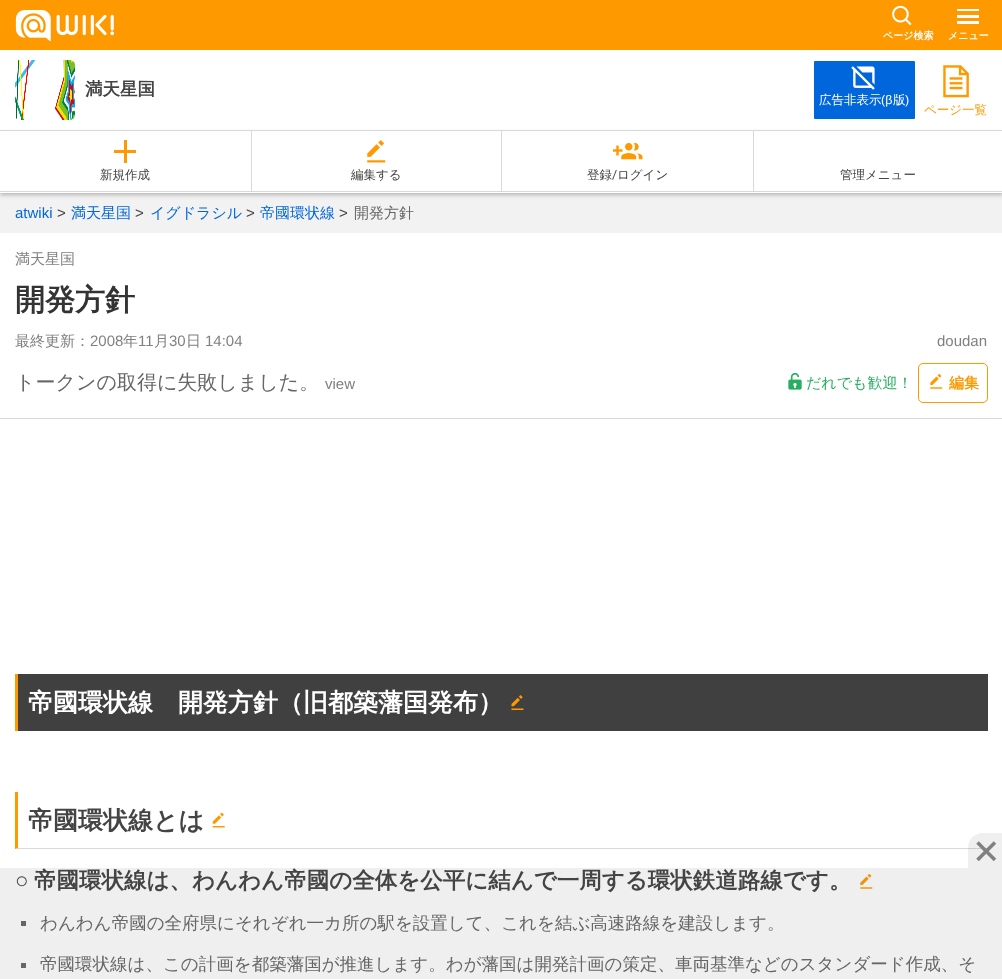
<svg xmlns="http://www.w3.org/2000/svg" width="1002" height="979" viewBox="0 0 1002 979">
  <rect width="100%" height="100%" fill="#fff"/>
  <path d="M0 868h1002v111H0z" fill="#efefef"/>
  <path d="M0 0h1002v50H0z" fill="#f90"/>
  <image x="15" y="10" width="100" height="31" href="img/1.png"/>
  <image x="892" y="5" width="20" height="21" href="img/2.png"/>
  <path d="M957 9h22v2H957z" fill="#fff"/>
  <path d="M957 15h22v3H957z" fill="#fff"/>
  <path d="M957 21h22v3H957z" fill="#fff"/>
  <image x="15" y="60" width="60" height="60" href="img/3.png"/>
  <rect x="814" y="61" width="101" height="58" rx="1" fill="#0066dc"/>
  <image x="851" y="66" width="24" height="24" href="img/4.png"/>
  <image x="943" y="65" width="26" height="33" href="img/5.png"/>
  <path d="M0 193h1002v40H0z" fill="#f2f2f2"/>
  <path d="M0 133h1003v62H0z" fill="#00000040" filter="blur(2px)"/>
  <path d="M0 131h1002v62H0z" fill="#fff"/>
  <path d="M0 130h1002v1H0z" fill="#d9d9d9"/>
  <path d="M0 191h1002v1H0z" fill="#d9d9d9"/>
  <path d="M114 150h22v3H114z" fill="#f90"/>
  <path d="M124 140h3v23H124z" fill="#f90"/>
  <path d="M251 131h1v60H251z" fill="#d9d9d9"/>
  <image x="367" y="140" width="19" height="23" href="img/6.png"/>
  <path d="M501 131h1v60H501z" fill="#d9d9d9"/>
  <image x="613" y="143" width="30" height="17" href="img/7.png"/>
  <path d="M753 131h1v60H753z" fill="#d9d9d9"/>
  <path d="M0 418h1002v1H0z" fill="#d9d9d9"/>
  <image x="788" y="372" width="14" height="18" href="img/8.png"/>
  <rect x="918.5" y="363.5" width="69" height="39" rx="4.5" fill="none" stroke="#f90"/>
  <image x="930" y="373" width="13" height="16" href="img/9.png"/>
  <path d="M18 674h970v57H18z" fill="#404040"/>
  <path d="M15 674h3v57H15z" fill="#f90"/>
  <image x="511" y="695" width="13" height="15" href="img/10.png"/>
  <path d="M988 849H15L18 848H988Z" fill="#d9d9d9"/>
  <path d="M15 849V792H18V848Z" fill="#f90"/>
  <image x="212" y="812" width="13" height="16" href="img/11.png"/>
  <image x="860" y="873" width="13" height="16" href="img/12.png"/>
  <path d="M21 921h5v5H21z" fill="#666"/>
  <path d="M21 963h5v5H21z" fill="#666"/>
  <path d="M983 833H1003V868H968V848C968 839.5 974.5 833 983 833Z" fill="#6363631a"/>
  <image x="976" y="841" width="21" height="21" href="img/13.png"/>
  <g font-family="WenQuanYi Zen Hei" font-size="10" font-weight="bold" fill="#fff">
    <text x="883" y="39">ページ検索</text>
    <text x="948" y="39">メニュー</text>
  </g>
  <text x="85" y="95" font-family="WenQuanYi Zen Hei" font-size="17.5" font-weight="bold" fill="#444">満天星国</text>
  <text x="819" y="104" font-family="WenQuanYi Zen Hei" font-size="12.5" font-weight="500" fill="#fff">広告非表示</text>
  <text x="881" y="104" font-family="Liberation Sans" font-size="12.5" fill="#fff">(β</text>
  <text x="893" y="104" font-family="WenQuanYi Zen Hei" font-size="12.5" font-weight="500" fill="#fff">版</text>
  <text x="905" y="104" font-family="Liberation Sans" font-size="12.5" fill="#fff">)</text>
  <text x="924" y="114" font-family="WenQuanYi Zen Hei" font-size="12.5" font-weight="500" fill="#f90">ページ一覧</text>
  <g font-family="WenQuanYi Zen Hei" font-size="12.5" font-weight="500" fill="#444">
    <text x="100" y="179">新規作成</text>
    <text x="351" y="179">編集する</text>
    <text x="587" y="179">登録</text>
  </g>
  <text x="612" y="179" font-family="Roboto" font-size="12.5" fill="#444">/</text>
  <g font-family="WenQuanYi Zen Hei" font-size="12.5" font-weight="500" fill="#444">
    <text x="617" y="179">ログイン</text>
    <text x="840" y="179">管理メニュー</text>
  </g>
  <text x="15" y="218" font-family="Liberation Sans" font-size="15" fill="#0066dc">atwiki</text>
  <text x="57" y="218" font-family="Liberation Sans" font-size="15" fill="#444">&gt;</text>
  <text x="71" y="218" font-family="WenQuanYi Zen Hei" font-size="15" font-weight="500" fill="#0066dc">満天星国</text>
  <text x="135" y="218" font-family="Liberation Sans" font-size="15" fill="#444">&gt;</text>
  <text x="150" y="218" font-family="WenQuanYi Zen Hei" font-size="15" font-weight="500" fill="#0066dc">イグドラシル</text>
  <text x="246" y="218" font-family="Liberation Sans" font-size="15" fill="#444">&gt;</text>
  <text x="260" y="218" font-family="WenQuanYi Zen Hei" font-size="15" font-weight="500" fill="#0066dc">帝國環状線</text>
  <text x="339" y="218" font-family="Liberation Sans" font-size="15" fill="#444">&gt;</text>
  <text x="354" y="218" font-family="WenQuanYi Zen Hei" font-size="15" font-weight="500" fill="#666">開発方針</text>
  <text x="15" y="264" font-family="WenQuanYi Zen Hei" font-size="15" font-weight="500" fill="#808080">満天星国</text>
  <text x="15" y="310" font-family="WenQuanYi Zen Hei" font-size="30" font-weight="bold" fill="#333">開発方針</text>
  <text x="15" y="346" font-family="WenQuanYi Zen Hei" font-size="15" font-weight="500" fill="#808080">最終更新：</text>
  <text x="90" y="346" font-family="Liberation Sans" font-size="15" fill="#808080">2008</text>
  <text x="123" y="346" font-family="WenQuanYi Zen Hei" font-size="15" font-weight="500" fill="#808080">年</text>
  <text x="138" y="346" font-family="Liberation Sans" font-size="15" fill="#808080">11</text>
  <text x="154" y="346" font-family="WenQuanYi Zen Hei" font-size="15" font-weight="500" fill="#808080">月</text>
  <text x="169" y="346" font-family="Liberation Sans" font-size="15" fill="#808080">30</text>
  <text x="186" y="346" font-family="WenQuanYi Zen Hei" font-size="15" font-weight="500" fill="#808080">日</text>
  <g font-family="Liberation Sans" font-size="15" fill="#808080">
    <text x="205" y="346">14:04</text>
    <text x="937" y="346">doudan</text>
  </g>
  <text x="15" y="389" font-family="WenQuanYi Zen Hei" font-size="20" font-weight="500" fill="#666">トークンの取得に失敗しました。</text>
  <text x="325" y="389" font-family="Liberation Sans" font-size="15" fill="#808080">view</text>
  <text x="806" y="388" font-family="WenQuanYi Zen Hei" font-size="15" font-weight="500" fill="#27ae60">だれでも歓迎！</text>
  <text x="949" y="388" font-family="WenQuanYi Zen Hei" font-size="15" font-weight="bold" fill="#f90">編集</text>
  <text x="28" y="711" font-family="WenQuanYi Zen Hei" font-size="25" font-weight="bold" fill="#fff">帝國環状線　開発方針（旧都築藩国発布）</text>
  <text x="28" y="829" font-family="WenQuanYi Zen Hei" font-size="25" font-weight="bold" fill="#444">帝國環状線とは</text>
  <text x="15" y="888" font-family="Liberation Sans" font-size="22.5" font-weight="bold" fill="#444">○</text>
  <text x="34" y="888" font-family="WenQuanYi Zen Hei" font-size="22.5" font-weight="bold" fill="#444">帝國環状線は、わんわん帝國の全体を公平に結んで一周する環状鉄道路線です。</text>
  <g font-family="WenQuanYi Zen Hei" font-size="17.5" font-weight="500" fill="#666">
    <text x="40" y="929">わんわん帝國の全府県にそれぞれ一カ所の駅を設置して、これを結ぶ高速路線を建設します。</text>
    <text x="40" y="970">帝國環状線は、この計画を都築藩国が推進します。わが藩国は開発計画の策定、車両基準などのスタンダード作成、そ</text>
  </g>
</svg>
